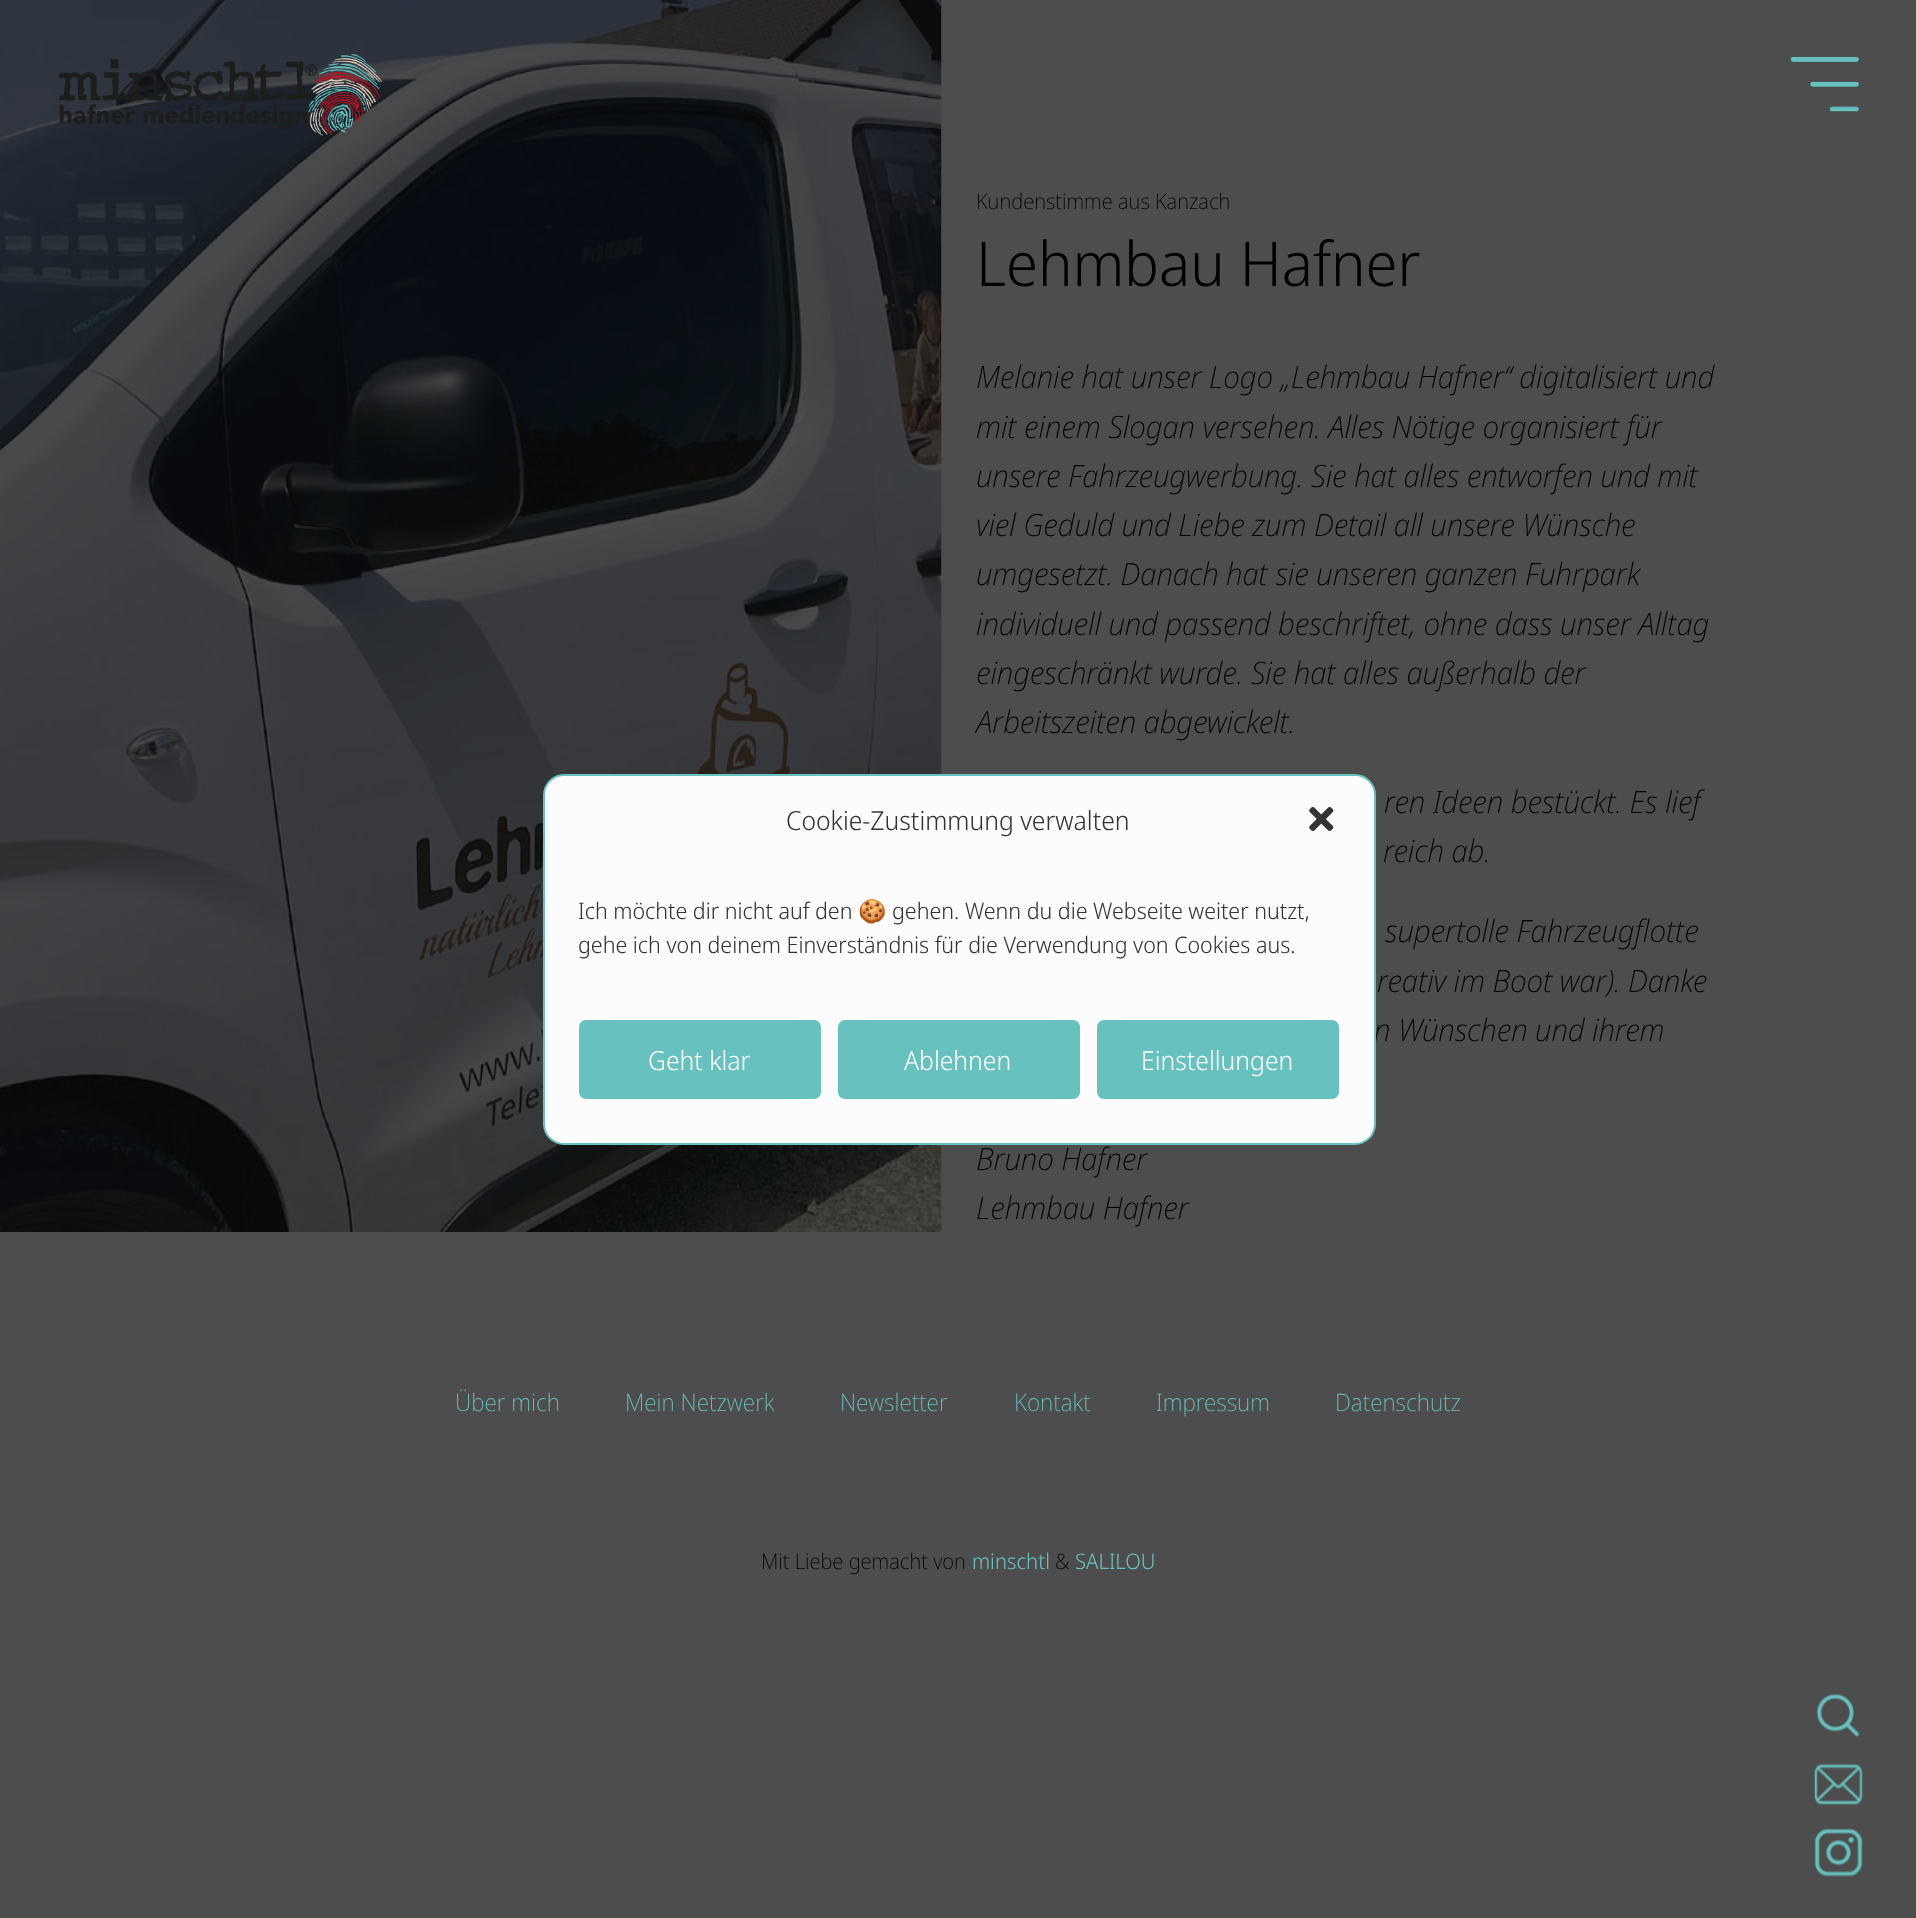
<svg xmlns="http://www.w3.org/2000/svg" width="1916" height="1918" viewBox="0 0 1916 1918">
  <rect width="100%" height="100%" fill="#4d4d4d"/>
  <image x="0" y="0" width="942" height="1232" href="img/3.png"/>
  <image x="59" y="54" width="324" height="82" href="img/1.png"/>
  <image x="1790" y="56" width="70" height="56" href="img/2.png"/>
  <image x="1816" y="1693" width="44" height="44" href="img/4.png"/>
  <image x="1814" y="1763" width="49" height="42" href="img/5.png"/>
  <image x="1814" y="1828" width="49" height="49" href="img/6.png"/>
  <text x="976" y="209" font-family="Noto Sans Display" font-size="21.5" font-weight="200" fill="#000">Kundenstimme aus Kanzach</text>
  <text x="976" y="286" font-family="Noto Sans Display" font-size="61.5" font-weight="300" fill="#000">Lehmbau Hafner</text>
  <g font-family="Noto Sans Display" font-size="30.8" font-weight="200" font-style="italic" fill="#000">
    <text x="976" y="388">Melanie hat unser Logo „Lehmbau Hafner“ digitalisiert und</text>
    <text x="976" y="438">mit einem Slogan versehen. Alles Nötige organisiert für</text>
    <text x="976" y="487">unsere Fahrzeugwerbung. Sie hat alles entworfen und mit</text>
    <text x="976" y="536">viel Geduld und Liebe zum Detail all unsere Wünsche</text>
    <text x="976" y="585">umgesetzt. Danach hat sie unseren ganzen Fuhrpark</text>
    <text x="976" y="635">individuell und passend beschriftet, ohne dass unser Alltag</text>
    <text x="976" y="684">eingeschränkt wurde. Sie hat alles außerhalb der</text>
    <text x="976" y="733">Arbeitszeiten abgewickelt.</text>
    <text x="1384" y="813">ren Ideen bestückt. Es lief</text>
    <text x="1383" y="862">reich ab.</text>
    <text x="1385" y="942">supertolle Fahrzeugflotte</text>
    <text x="1377" y="992">reativ im Boot war). Danke</text>
    <text x="1374" y="1041">n Wünschen und ihrem</text>
    <text x="976" y="1170">Bruno Hafner</text>
    <text x="976" y="1219">Lehmbau Hafner</text>
  </g>
  <g font-family="Noto Sans Display" font-size="24" font-weight="200" fill="#66c1bf">
    <text x="455" y="1411">Über mich</text>
    <text x="625" y="1411">Mein Netzwerk</text>
    <text x="840" y="1411">Newsletter</text>
    <text x="1014" y="1411">Kontakt</text>
    <text x="1156" y="1411">Impressum</text>
    <text x="1335" y="1411">Datenschutz</text>
  </g>
  <text x="761" y="1569" font-family="Noto Sans Display" font-size="21.5" font-weight="200" fill="#000">Mit Liebe gemacht von</text>
  <text x="972" y="1569" font-family="Noto Sans Display" font-size="21.5" font-weight="300" fill="#66c1bf">minschtl</text>
  <text x="1055" y="1569" font-family="Noto Sans Display" font-size="21.5" font-weight="200" fill="#000">&amp;</text>
  <text x="1075" y="1569" font-family="Noto Sans Display" font-size="21.5" font-weight="300" fill="#66c1bf">SALILOU</text>
  <rect x="544" y="775" width="831" height="369" rx="20" fill="#fcfcfc" stroke="#66c1bf" stroke-width="2"/>
  <text x="786" y="830" font-family="Noto Sans Display" font-size="26.25" font-weight="300" fill="#333">Cookie-Zustimmung verwalten</text>
  <image x="1309" y="807" width="25" height="24" href="img/7.png"/>
  <text x="578" y="919" font-family="Noto Sans Display" font-size="22.75" font-weight="300" fill="#333">Ich möchte dir nicht auf den</text>
  <text x="858" y="919" font-family="Noto Color Emoji" font-size="22.75" fill="#333">🍪</text>
  <g font-family="Noto Sans Display" font-size="22.75" font-weight="300" fill="#333">
    <text x="892" y="919">gehen. Wenn du die Webseite weiter nutzt,</text>
    <text x="578" y="953">gehe ich von deinem Einverständnis für die Verwendung von Cookies aus.</text>
  </g>
  <rect x="580" y="1021" width="240" height="77" rx="6" fill="#66c1bf" stroke="#66c1bf" stroke-width="2"/>
  <text x="648" y="1070" font-family="Noto Sans Display" font-size="26.25" font-weight="300" fill="#fff">Geht klar</text>
  <rect x="839" y="1021" width="240" height="77" rx="6" fill="#66c1bf" stroke="#66c1bf" stroke-width="2"/>
  <text x="904" y="1070" font-family="Noto Sans Display" font-size="26.25" font-weight="300" fill="#fff">Ablehnen</text>
  <rect x="1098" y="1021" width="240" height="77" rx="6" fill="#66c1bf" stroke="#66c1bf" stroke-width="2"/>
  <text x="1141" y="1070" font-family="Noto Sans Display" font-size="26.25" font-weight="300" fill="#fff">Einstellungen</text>
</svg>
